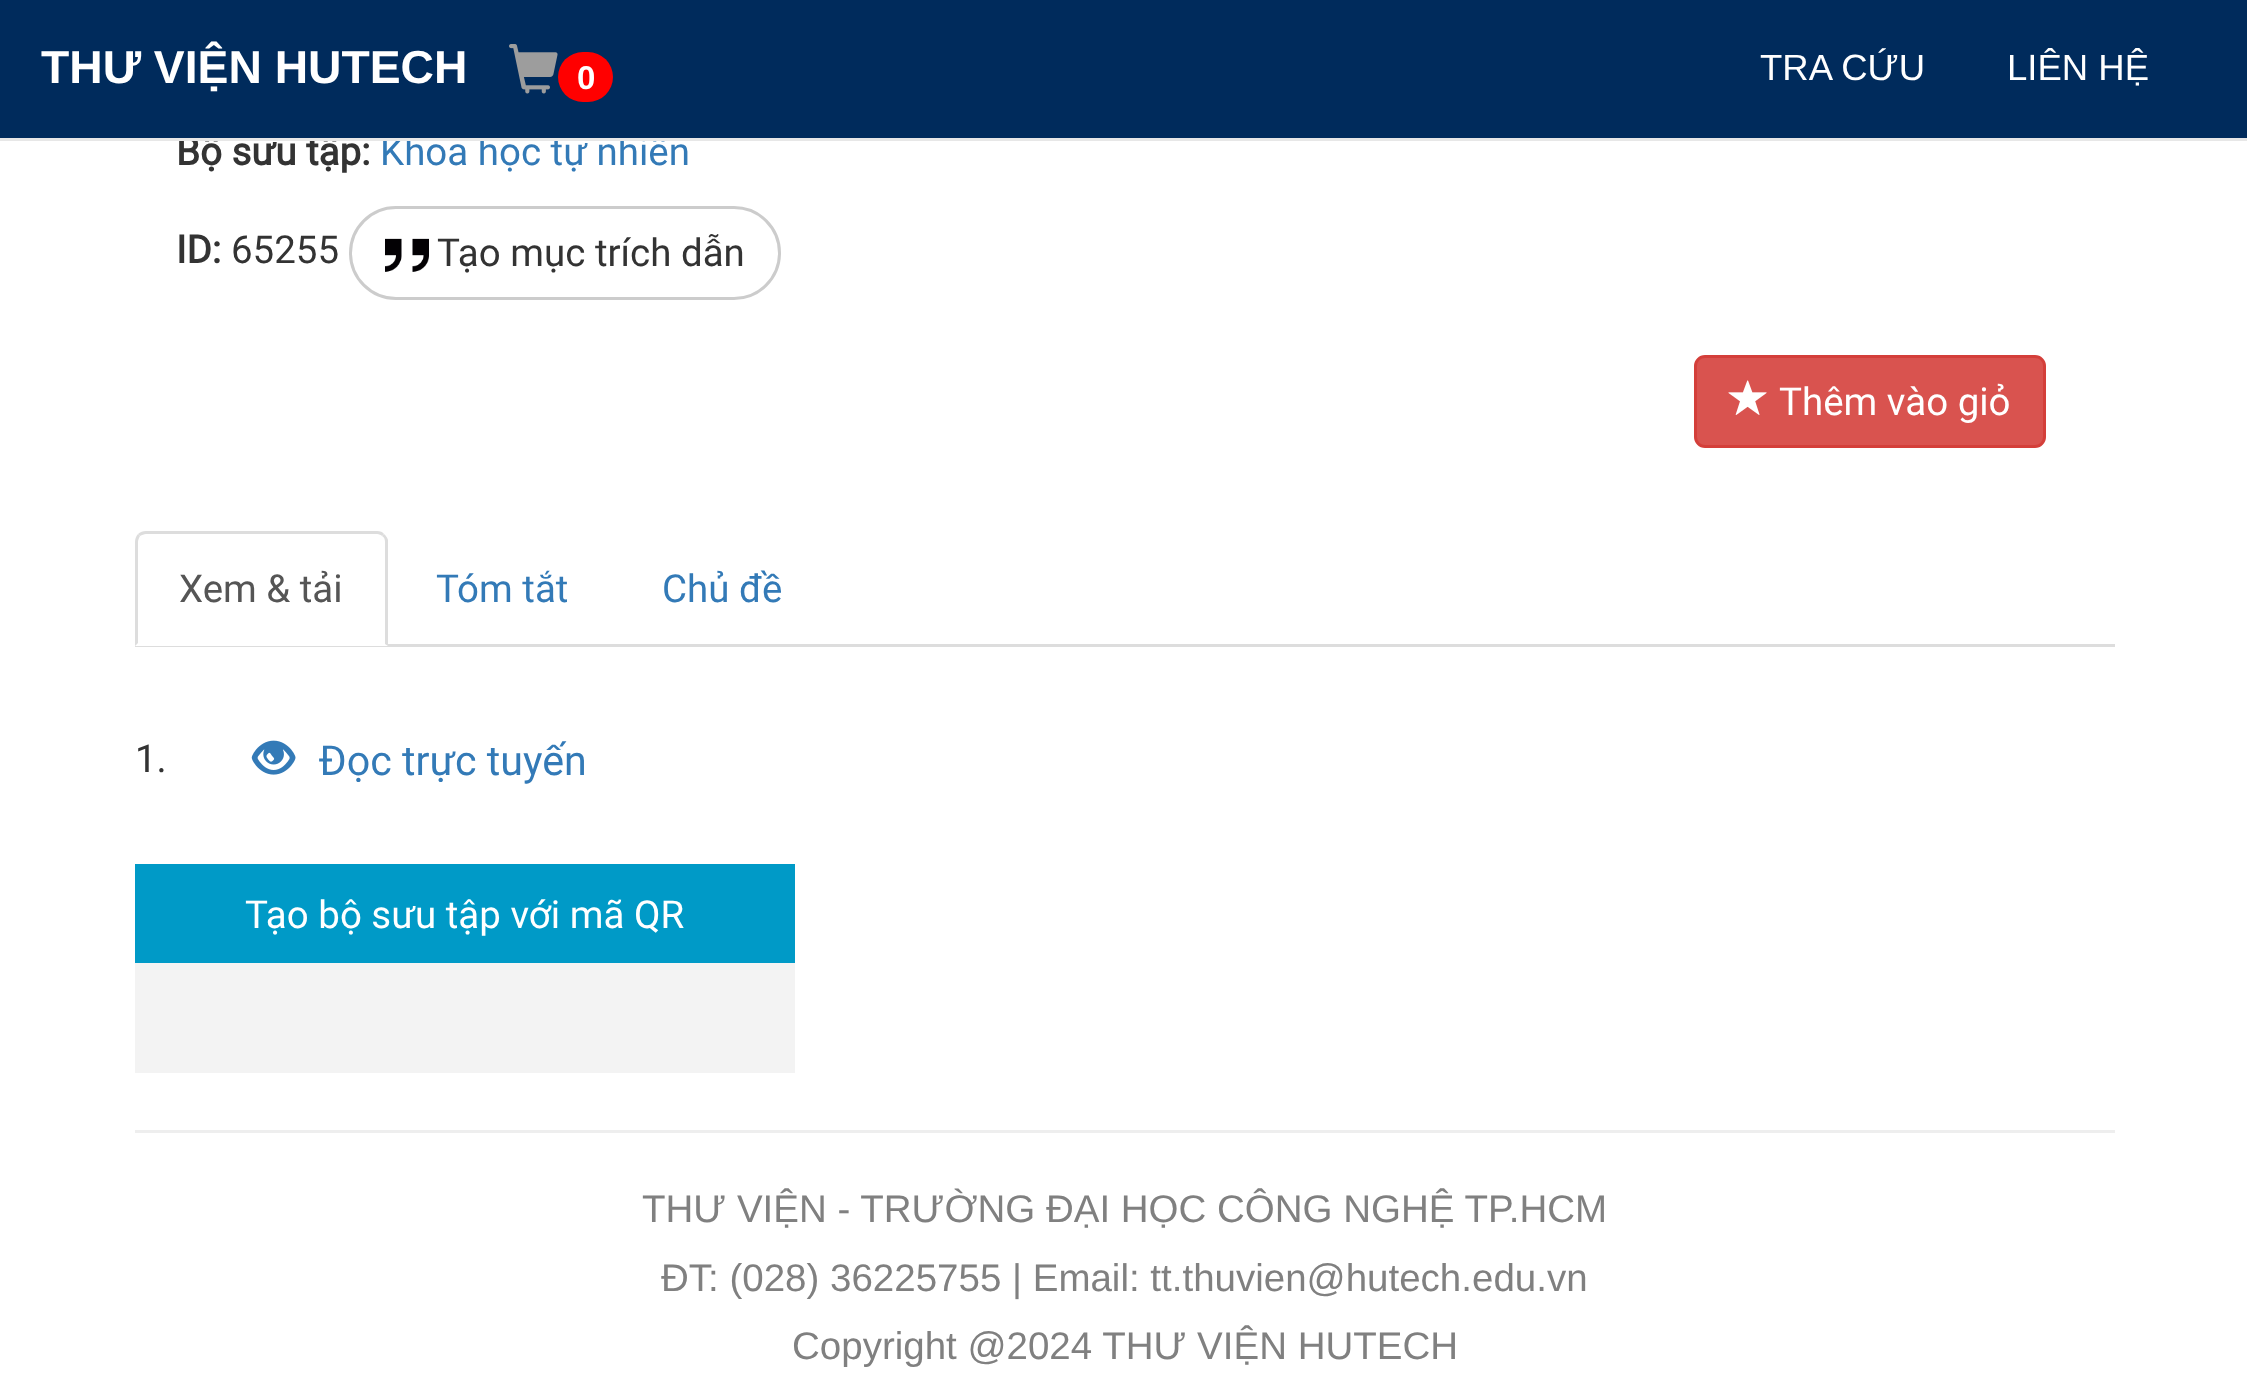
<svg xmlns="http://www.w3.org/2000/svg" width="2247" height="1393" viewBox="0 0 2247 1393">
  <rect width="100%" height="100%" fill="#fff"/>
  <rect x="350.5" y="207.5" width="429" height="91" rx="45.5" fill="none" stroke="#ccc" stroke-width="3"/>
  <image x="385" y="238" width="44" height="34" href="img/2.png"/>
  <rect x="1695.5" y="356.5" width="349" height="90" rx="9.5" fill="#d9534f" stroke="#d43f3a" stroke-width="3"/>
  <image x="1728" y="380" width="39" height="35" href="img/3.png"/>
  <path d="M135 644h1980v3H135z" fill="#ddd"/>
  <path d="M146 531H377C383 531 388 536 388 542V646H135V542C135 536 140 531 146 531Z" fill="#fff"/>
  <path d="M146 531C143 531 140 532 138 534L140 536C142 535 144 534 146 534H377C379 534 381 535 382 536L384 534C383 532 380 531 377 531Z" fill="#ddd"/>
  <path d="M384 534C386 536 387 537 388 540V646L385 644V542C385 539 384 537 382 536Z" fill="#ddd"/>
  <path d="M138 534C136 536 135 539 135 542V646L138 643V542C138 540 139 538 140 536Z" fill="#ddd"/>
  <image x="251" y="740" width="45" height="35" href="img/4.png"/>
  <path d="M135 963h660v110H135z" fill="#f3f3f3"/>
  <path d="M135 864h660v99H135z" fill="#009ac7"/>
  <path d="M135 1130h1980v3H135z" fill="#eee"/>
  <text x="176" y="165" font-family="Roboto" font-size="38.5" font-weight="bold" fill="#333">Bộ sưu tập:</text>
  <text x="380" y="165" font-family="Roboto" font-size="38.5" fill="#337ab7">Khoa học tự nhiên</text>
  <path d="M0 0h2247v138H0z" fill="#002b5c"/>
  <image x="509" y="44" width="49" height="50" href="img/1.png"/>
  <rect x="558" y="52" width="55" height="50" rx="25" fill="#f00"/>
  <text x="577" y="89" font-family="Liberation Sans" font-size="33" font-weight="bold" fill="#fff">0</text>
  <text x="41" y="83" font-family="Liberation Sans" font-size="46.25" font-weight="bold" fill="#fff">THƯ VIỆN HUTECH</text>
  <g font-family="Liberation Sans" font-size="36.5" fill="#fff">
    <text x="2007" y="80">LIÊN HỆ</text>
    <text x="1760" y="80">TRA CỨU</text>
  </g>
  <path d="M0 138h2247v3H0z" fill="#e7e7e7"/>
  <text x="176" y="263" font-family="Roboto" font-size="38.5" font-weight="bold" fill="#333">ID:</text>
  <g font-family="Roboto" font-size="38.5" fill="#333">
    <text x="231" y="263">65255</text>
    <text x="437" y="266">Tạo mục trích dẫn</text>
  </g>
  <text x="1779" y="415" font-family="Roboto" font-size="38.5" fill="#fff">Thêm vào giỏ</text>
  <text x="179" y="602" font-family="Roboto" font-size="38.5" fill="#555">Xem &amp; tải</text>
  <g font-family="Roboto" font-size="38.5" fill="#337ab7">
    <text x="436" y="602">Tóm tắt</text>
    <text x="662" y="602">Chủ đề</text>
  </g>
  <text x="135" y="772" font-family="Roboto" font-size="38.5" fill="#333">1.</text>
  <text x="319" y="775" font-family="Roboto" font-size="41.25" fill="#337ab7">Đọc trực tuyến</text>
  <text x="245" y="928" font-family="Roboto" font-size="38.5" fill="#fff">Tạo bộ sưu tập với mã QR</text>
  <g font-family="Liberation Sans" font-size="38.5" fill="#808080">
    <text x="642" y="1222">THƯ VIỆN - TRƯỜNG ĐẠI HỌC CÔNG NGHỆ TP.HCM</text>
    <text x="661" y="1291">ĐT: (028) 36225755 | Email: tt.thuvien@hutech.edu.vn</text>
    <text x="792" y="1359">Copyright @2024 THƯ VIỆN HUTECH</text>
  </g>
</svg>
